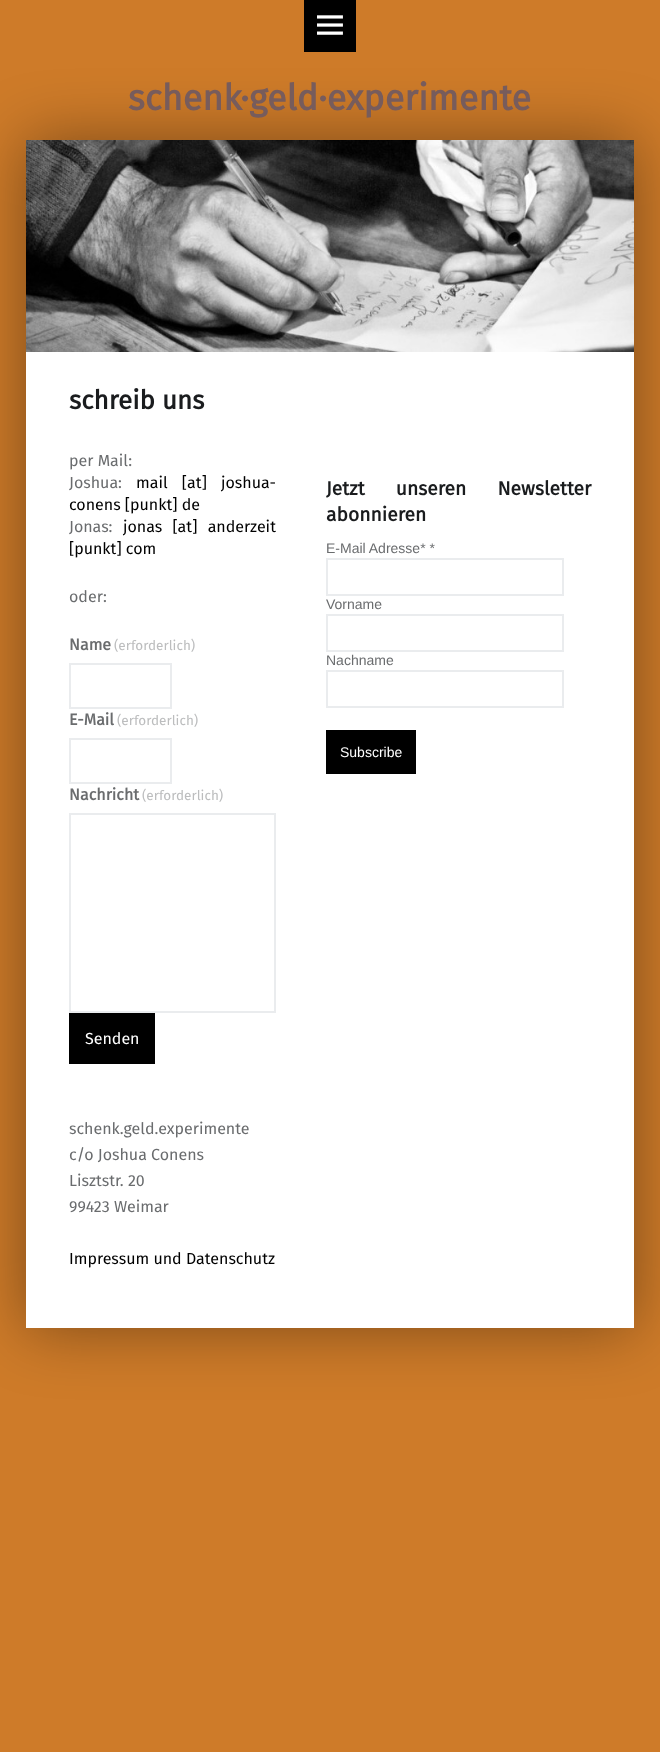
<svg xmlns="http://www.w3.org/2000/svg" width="660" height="1752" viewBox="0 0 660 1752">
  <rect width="100%" height="100%" fill="#ce7b29"/>
  <path d="M26 140h608v1188H26z" fill="#00000066" filter="blur(32px)"/>
  <path d="M304 0h52v52H304z" fill="#000"/>
  <image x="317" y="15" width="26" height="20" href="img/1.png"/>
  <path d="M26 352h608v976H26z" fill="#fff"/>
  <image x="26" y="140" width="608" height="212" href="img/2.png"/>
  <path d="M70 664h101v44H70z" fill="none" stroke="#eaecee" stroke-width="2"/>
  <path d="M70 739h101v44H70z" fill="none" stroke="#eaecee" stroke-width="2"/>
  <path d="M70 814h205v198H70z" fill="none" stroke="#eaecee" stroke-width="2"/>
  <path d="M69 1013h86v51H69z" fill="#000"/>
  <path d="M327 559h236v36H327z" fill="none" stroke="#eaecee" stroke-width="2"/>
  <path d="M327 615h236v36H327z" fill="none" stroke="#eaecee" stroke-width="2"/>
  <path d="M327 671h236v36H327z" fill="none" stroke="#eaecee" stroke-width="2"/>
  <path d="M326 730h90v44H326z" fill="#000"/>
  <text x="128" y="110" font-family="Fira Sans" font-size="35.8" font-weight="bold" fill="#775c5c">schenk·geld·experimente</text>
  <text x="69" y="409" font-family="Fira Sans" font-size="26" font-weight="bold" fill="#1a1c1e">schreib uns</text>
  <g font-family="Fira Sans" font-size="16" fill="#6a6c6e">
    <text x="69" y="466">per Mail:</text>
    <text x="69" y="488">Joshua:</text>
  </g>
  <g font-family="Fira Sans" font-size="16" fill="#000">
    <text x="136" y="488" word-spacing="10">mail [at] joshua-</text>
    <text x="69" y="510">conens [punkt] de</text>
  </g>
  <text x="69" y="532" font-family="Fira Sans" font-size="16" fill="#6a6c6e">Jonas:</text>
  <g font-family="Fira Sans" font-size="16" fill="#000">
    <text x="123" y="532" word-spacing="6">jonas [at] anderzeit</text>
    <text x="69" y="554">[punkt] com</text>
  </g>
  <text x="69" y="602" font-family="Fira Sans" font-size="16" fill="#6a6c6e">oder:</text>
  <text x="69" y="650" font-family="Fira Sans" font-size="16" font-weight="bold" fill="#6a6c6e">Name</text>
  <text x="114" y="650" font-family="Fira Sans" font-size="13.5" fill="#bcbdbe">(erforderlich)</text>
  <text x="69" y="725" font-family="Fira Sans" font-size="16" font-weight="bold" fill="#6a6c6e">E-Mail</text>
  <text x="117" y="725" font-family="Fira Sans" font-size="13.5" fill="#bcbdbe">(erforderlich)</text>
  <text x="69" y="800" font-family="Fira Sans" font-size="16" font-weight="bold" fill="#6a6c6e">Nachricht</text>
  <text x="142" y="800" font-family="Fira Sans" font-size="13.5" fill="#bcbdbe">(erforderlich)</text>
  <text x="85" y="1044" font-family="Fira Sans" font-size="16" fill="#fff">Senden</text>
  <g font-family="Fira Sans" font-size="19.25" font-weight="bold" fill="#1a1c1e">
    <text x="326" y="495" word-spacing="26">Jetzt unseren Newsletter</text>
    <text x="326" y="521">abonnieren</text>
  </g>
  <g font-family="Liberation Sans" font-size="14" fill="#6a6c6e">
    <text x="326" y="553">E-Mail Adresse* *</text>
    <text x="326" y="609">Vorname</text>
    <text x="326" y="665">Nachname</text>
  </g>
  <text x="340" y="757" font-family="Liberation Sans" font-size="14" fill="#fff">Subscribe</text>
  <g font-family="Fira Sans" font-size="16" fill="#6a6c6e">
    <text x="69" y="1134">schenk.geld.experimente</text>
    <text x="69" y="1160">c/o Joshua Conens</text>
    <text x="69" y="1186">Lisztstr. 20</text>
    <text x="69" y="1212">99423 Weimar</text>
  </g>
  <text x="69" y="1264" font-family="Fira Sans" font-size="16" fill="#000">Impressum und Datenschutz</text>
</svg>
